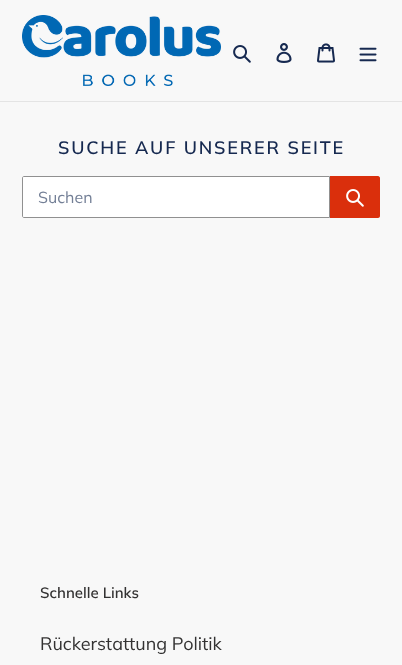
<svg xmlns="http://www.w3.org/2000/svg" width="402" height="665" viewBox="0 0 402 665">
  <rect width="100%" height="100%" fill="#f8f8f8"/>
  <path d="M0 101h402v1H0z" fill="#e4e4e4"/>
  <image x="22" y="15" width="199" height="71" href="img/1.png"/>
  <image x="233" y="45" width="18" height="18" href="img/2.png"/>
  <image x="276" y="43" width="16" height="20" href="img/3.png"/>
  <image x="317" y="43" width="18" height="20" href="img/4.png"/>
  <image x="359" y="47" width="18" height="15" href="img/5.png"/>
  <path d="M24 176.5H329.5V217.5H24C23 217.5 22.5 217 22.5 216V178C22.5 177 23 176.5 24 176.5Z" fill="#fff" stroke="#909090"/>
  <path d="M330 176H378C379 176 380 177 380 178V216C380 217 379 218 378 218H330Z" fill="#da2f0c"/>
  <image x="346" y="189" width="18" height="18" href="img/6.png"/>
  <text x="58" y="154" font-family="Muli" font-size="18" font-weight="600" letter-spacing="1.8" fill="#162950">SUCHE AUF UNSERER SEITE</text>
  <text x="38" y="203" font-family="Muli" font-size="16" fill="#737f96">Suchen</text>
  <text x="40" y="598" font-family="Muli" font-size="15" font-weight="600" fill="#333232">Schnelle Links</text>
  <text x="40" y="650" font-family="Muli" font-size="18" fill="#333232">Rückerstattung Politik</text>
</svg>
